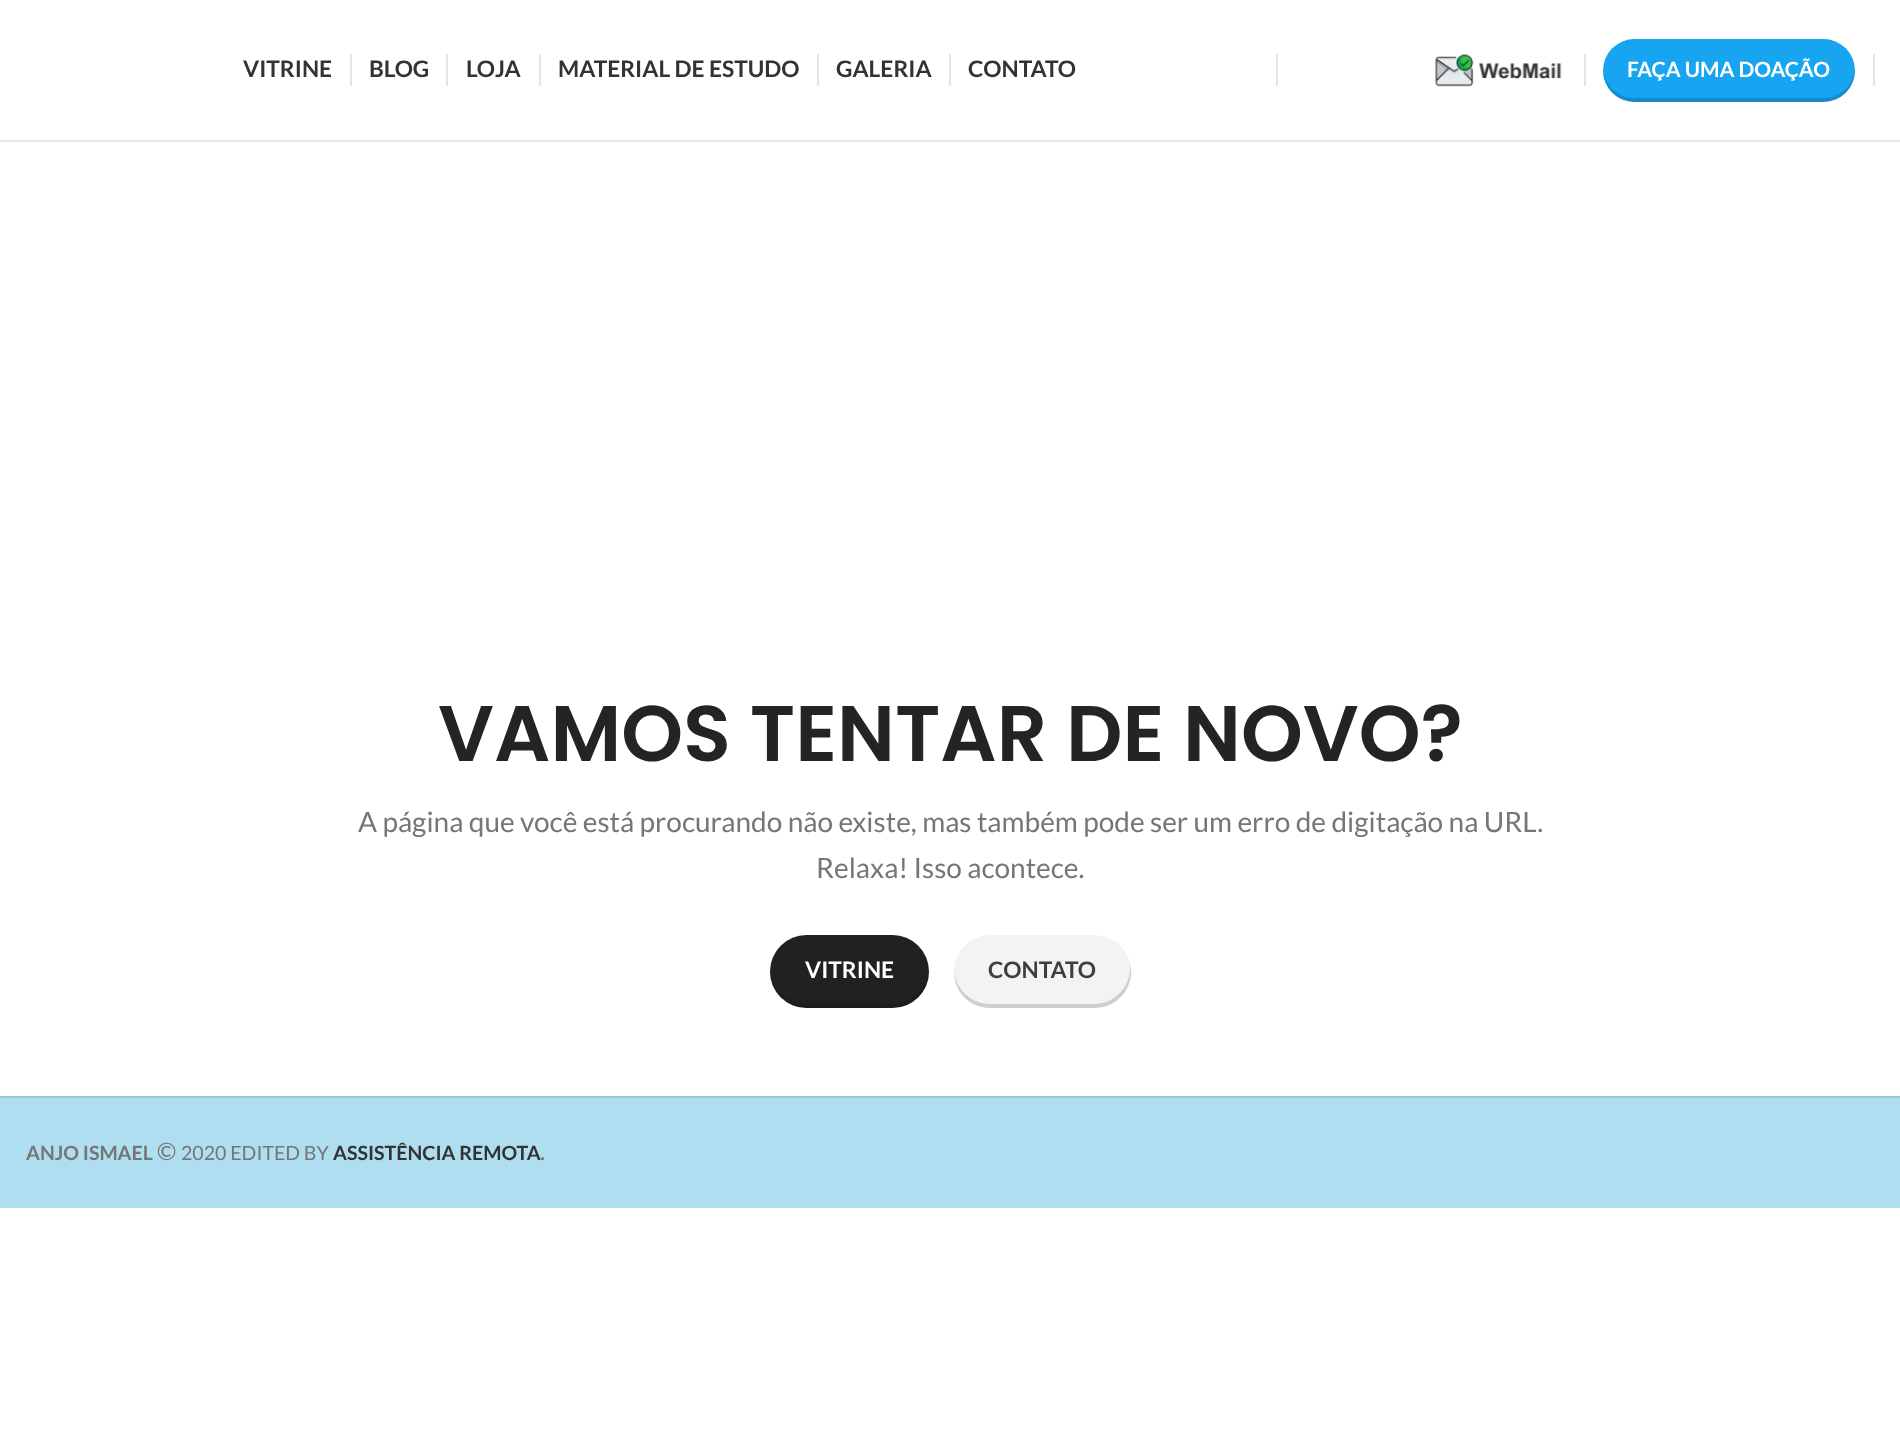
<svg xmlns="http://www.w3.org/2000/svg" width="1900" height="1436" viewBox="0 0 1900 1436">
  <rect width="100%" height="100%" fill="#fff"/>
  <path d="M0 140h1900v2H0z" fill="#e6e6e6"/>
  <path d="M350 54h2v32H350z" fill="#e4e4e4"/>
  <path d="M446 54h2v32H446z" fill="#e4e4e4"/>
  <path d="M539 54h2v32H539z" fill="#e4e4e4"/>
  <path d="M817 54h2v32H817z" fill="#e4e4e4"/>
  <path d="M949 54h2v32H949z" fill="#e4e4e4"/>
  <path d="M1276 54h2v32H1276z" fill="#e4e4e4"/>
  <image x="1435" y="54" width="127" height="33" href="img/1.png"/>
  <path d="M1584 54h2v32H1584z" fill="#e4e4e4"/>
  <rect x="1603" y="39" width="252" height="63" rx="31.5" fill="#17a5f1"/>
  <path d="M1603 68V70C1603 88 1617 102 1634 102H1824C1841 102 1855 88 1855 70V68C1854 85 1840 98 1824 98H1634C1618 98 1604 85 1603 68Z" fill="#00000026"/>
  <path d="M1873 54h2v32H1873z" fill="#e4e4e4"/>
  <rect x="770" y="935" width="159" height="73" rx="36.5" fill="#212121"/>
  <path d="M770 970V972C770 992 786 1008 806 1008H892C913 1008 929 992 929 972V970C928 989 912 1004 892 1004H807C787 1004 771 989 770 970Z" fill="#00000026"/>
  <rect x="954" y="935" width="177" height="73" rx="36.5" fill="#f3f3f3"/>
  <path d="M954 970V972C954 992 970 1008 990 1008H1094C1115 1008 1131 992 1131 972C1131 968 1130 964 1129 960L1130 968C1130 988 1114 1004 1094 1004H990C971 1004 955 989 954 970Z" fill="#00000026"/>
  <path d="M0 1098h1900v110H0z" fill="#aedeef"/>
  <path d="M0 1096h1900v2H0z" fill="#9cc6d6"/>
  <g font-family="Lato" font-size="22.75" font-weight="bold" fill="#333">
    <text x="243" y="77">VITRINE</text>
    <text x="369" y="77">BLOG</text>
    <text x="466" y="77">LOJA</text>
    <text x="558" y="77">MATERIAL DE ESTUDO</text>
    <text x="836" y="77">GALERIA</text>
    <text x="968" y="77">CONTATO</text>
  </g>
  <text x="1627" y="77" font-family="Lato" font-size="21" font-weight="bold" fill="#fff">FAÇA UMA DOAÇÃO</text>
  <text x="438" y="761" font-family="Poppins" font-size="78.75" font-weight="600" fill="#242424">VAMOS TENTAR DE NOVO?</text>
  <g font-family="Lato" font-size="28" fill="#767676">
    <text x="358" y="832">A página que você está procurando não existe, mas também pode ser um erro de digitação na URL.</text>
    <text x="816" y="878">Relaxa! Isso acontece.</text>
  </g>
  <text x="805" y="978" font-family="Lato" font-size="22.75" font-weight="bold" fill="#fff">VITRINE</text>
  <text x="988" y="978" font-family="Lato" font-size="22.75" font-weight="bold" fill="#3e3e3e">CONTATO</text>
  <text x="26" y="1160" font-family="Lato" font-size="19.6" font-weight="bold" fill="#767676">ANJO ISMAEL</text>
  <text x="157" y="1160" font-family="Lato" font-size="24" fill="#767676">©</text>
  <text x="181" y="1160" font-family="Lato" font-size="19.6" fill="#767676">2020 EDITED BY</text>
  <text x="333" y="1160" font-family="Lato" font-size="19.6" font-weight="bold" fill="#333">ASSISTÊNCIA REMOTA</text>
  <text x="540" y="1160" font-family="Lato" font-size="24" fill="#767676">.</text>
</svg>
